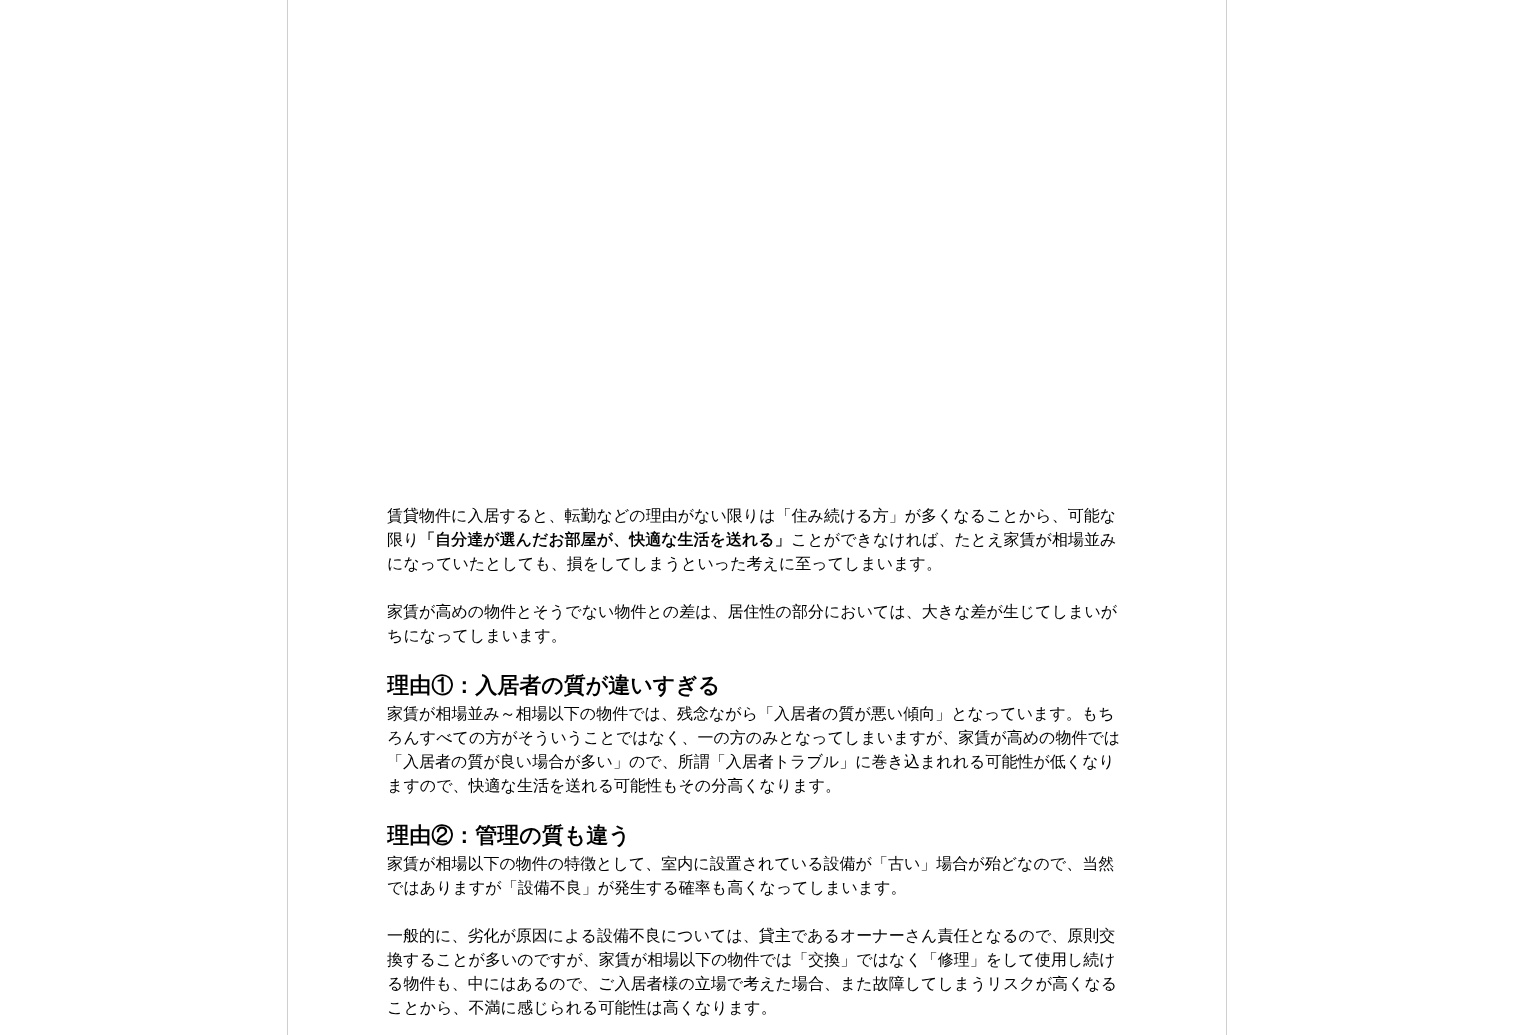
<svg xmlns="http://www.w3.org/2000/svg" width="1514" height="1035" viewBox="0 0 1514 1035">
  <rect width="100%" height="100%" fill="#fff"/>
  <path d="M287.5 -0.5h939v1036H287.5z" fill="none" stroke="#cfcfcf"/>
  <g font-family="WenQuanYi Zen Hei" font-size="16" font-weight="500" fill="#000">
    <text x="387" y="521">賃貸物件に入居すると、転勤などの理由がない限りは「住み続ける方」が多くなることから、可能な</text>
    <text x="387" y="545">限り</text>
  </g>
  <text x="419" y="545" font-family="WenQuanYi Zen Hei" font-size="16" font-weight="bold" fill="#000">「自分達が選んだお部屋が、快適な生活を送れる」</text>
  <g font-family="WenQuanYi Zen Hei" font-size="16" font-weight="500" fill="#000">
    <text x="791" y="545">ことができなければ、たとえ家賃が相場並み</text>
    <text x="387" y="569">になっていたとしても、損をしてしまうといった考えに至ってしまいます。</text>
    <text x="387" y="617">家賃が高めの物件とそうでない物件との差は、居住性の部分においては、大きな差が生じてしまいが</text>
    <text x="387" y="641">ちになってしまいます。</text>
  </g>
  <text x="387" y="693" font-family="WenQuanYi Zen Hei" font-size="22" font-weight="bold" fill="#000">理由①：入居者の質が違いすぎる</text>
  <g font-family="WenQuanYi Zen Hei" font-size="16" font-weight="500" fill="#000">
    <text x="387" y="719">家賃が相場並み～相場以下の物件では、残念ながら「入居者の質が悪い傾向」となっています。もち</text>
    <text x="387" y="743">ろんすべての方がそういうことではなく、一の方のみとなってしまいますが、家賃が高めの物件では</text>
    <text x="387" y="767">「入居者の質が良い場合が多い」ので、所謂「入居者トラブル」に巻き込まれれる可能性が低くなり</text>
    <text x="387" y="791">ますので、快適な生活を送れる可能性もその分高くなります。</text>
  </g>
  <text x="387" y="843" font-family="WenQuanYi Zen Hei" font-size="22" font-weight="bold" fill="#000">理由②：管理の質も違う</text>
  <g font-family="WenQuanYi Zen Hei" font-size="16" font-weight="500" fill="#000">
    <text x="387" y="869">家賃が相場以下の物件の特徴として、室内に設置されている設備が「古い」場合が殆どなので、当然</text>
    <text x="387" y="893">ではありますが「設備不良」が発生する確率も高くなってしまいます。</text>
    <text x="387" y="941">一般的に、劣化が原因による設備不良については、貸主であるオーナーさん責任となるので、原則交</text>
    <text x="387" y="965">換することが多いのですが、家賃が相場以下の物件では「交換」ではなく「修理」をして使用し続け</text>
    <text x="387" y="989">る物件も、中にはあるので、ご入居者様の立場で考えた場合、また故障してしまうリスクが高くなる</text>
    <text x="387" y="1013">ことから、不満に感じられる可能性は高くなります。</text>
  </g>
</svg>
